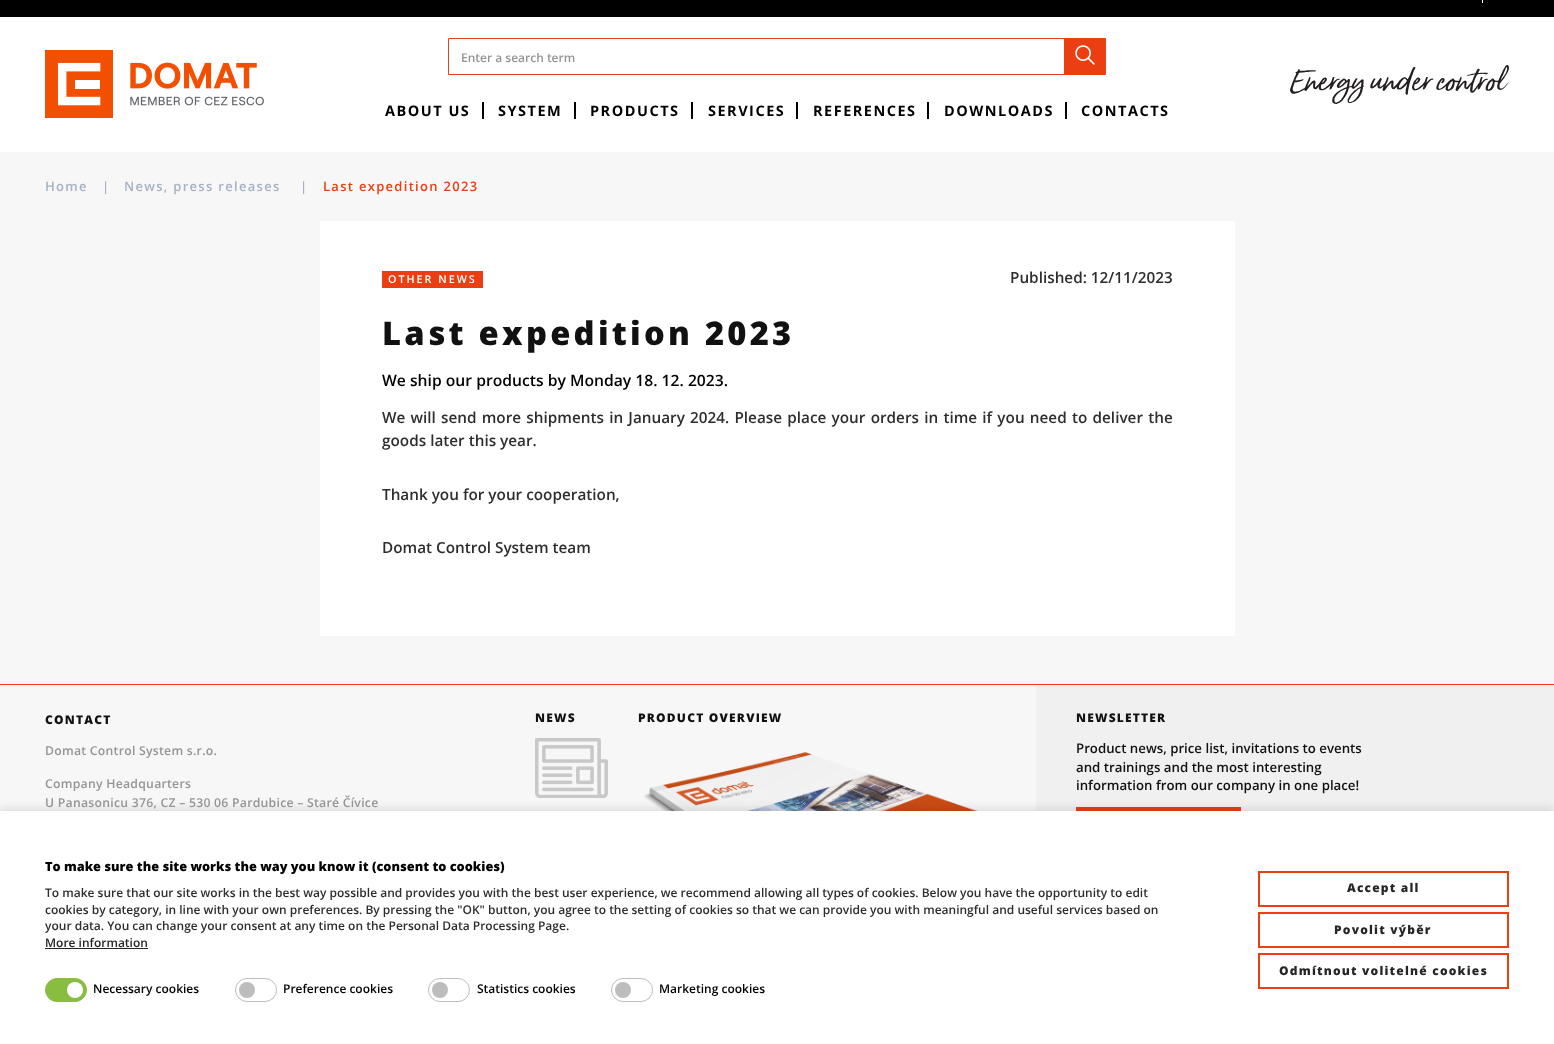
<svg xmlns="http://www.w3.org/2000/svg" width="1554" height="1044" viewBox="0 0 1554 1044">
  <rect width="100%" height="100%" fill="#fff"/>
  <path d="M0 0h1554v17H0z" fill="#000"/>
  <path d="M1482 0h1v3H1482z" fill="#fff"/>
  <image x="45" y="50" width="219" height="68" href="img/1.png"/>
  <path d="M448.5 38.5h657v36H448.5z" fill="none" stroke="#eb3e13"/>
  <path d="M1064 39h41v35H1064z" fill="#eb3e13"/>
  <image x="1075" y="45" width="20" height="20" href="img/2.png"/>
  <path d="M482 102h2v17H482z" fill="#000"/>
  <path d="M574 102h2v17H574z" fill="#000"/>
  <path d="M691 102h2v17H691z" fill="#000"/>
  <path d="M796 102h2v17H796z" fill="#000"/>
  <path d="M927 102h2v17H927z" fill="#000"/>
  <path d="M1065 102h2v17H1065z" fill="#000"/>
  <image x="1290" y="65" width="219" height="39" href="img/3.png"/>
  <path d="M0 152h1554v532H0z" fill="#f7f7f7"/>
  <path d="M320 221h915v415H320z" fill="#fff"/>
  <path d="M382 271h101v17H382z" fill="#eb3e13"/>
  <path d="M0 685h1036v126H0z" fill="#f7f7f7"/>
  <path d="M0 684h1554v1H0z" fill="#eb3e13"/>
  <image x="535" y="738" width="73" height="60" href="img/4.png"/>
  <image x="644" y="752" width="334" height="59" href="img/5.png"/>
  <path d="M1036 685h518v126H1036z" fill="#f0f0f0"/>
  <path d="M1076 807h165v4H1076z" fill="#eb3e13"/>
  <path d="M0 808h1554v233H0z" fill="#0000001a" filter="blur(4px)"/>
  <path d="M0 811h1554v233H0z" fill="#fff"/>
  <path d="M45 948h103v1H45z" fill="#262626"/>
  <rect x="45.5" y="978.5" width="41" height="23" rx="11.5" fill="#89bd3f" stroke="#89bd3f"/>
  <circle cx="75" cy="990" r="8" fill="#fff"/>
  <rect x="235.5" y="978.5" width="41" height="23" rx="11.5" fill="none" stroke="#bdbdbd"/>
  <circle cx="247" cy="990" r="8" fill="#bdbdbd"/>
  <rect x="428.5" y="978.5" width="41" height="23" rx="11.5" fill="none" stroke="#bdbdbd"/>
  <circle cx="440" cy="990" r="8" fill="#bdbdbd"/>
  <rect x="611.5" y="978.5" width="41" height="23" rx="11.5" fill="none" stroke="#bdbdbd"/>
  <circle cx="623" cy="990" r="8" fill="#bdbdbd"/>
  <path d="M1259 872h249v34H1259z" fill="none" stroke="#eb3e13" stroke-width="2"/>
  <path d="M1259 913h249v34H1259z" fill="none" stroke="#eb3e13" stroke-width="2"/>
  <path d="M1259 954h249v34H1259z" fill="none" stroke="#eb3e13" stroke-width="2"/>
  <text x="461" y="62" font-family="Open Sans" font-size="12" font-weight="600" fill="#959595">Enter a search term</text>
  <g font-family="Open Sans" font-size="14.5" font-weight="bold" letter-spacing="1.5" fill="#000">
    <text x="385" y="116">ABOUT US</text>
    <text x="498" y="116">SYSTEM</text>
    <text x="590" y="116">PRODUCTS</text>
    <text x="708" y="116">SERVICES</text>
    <text x="813" y="116">REFERENCES</text>
    <text x="944" y="116">DOWNLOADS</text>
    <text x="1081" y="116">CONTACTS</text>
  </g>
  <g font-family="Open Sans" font-size="13" font-weight="600" letter-spacing="1.3" fill="#a6b2c4">
    <text x="45" y="191">Home</text>
    <text x="102" y="191">|</text>
    <text x="124" y="191">News, press releases</text>
    <text x="300" y="191">|</text>
  </g>
  <text x="323" y="191" font-family="Open Sans" font-size="13" font-weight="600" letter-spacing="1.3" fill="#eb3e13">Last expedition 2023</text>
  <text x="388" y="283" font-family="Open Sans" font-size="10.75" font-weight="600" letter-spacing="2" fill="#fff">OTHER NEWS</text>
  <text x="1010" y="283" font-family="Open Sans" font-size="15.3" font-weight="600" fill="#2e2e2e">Published: 12/11/2023</text>
  <text x="382" y="345" font-family="Open Sans" font-size="32.7" font-weight="800" letter-spacing="3.25" fill="#111">Last expedition 2023</text>
  <text x="382" y="386" font-family="Open Sans" font-size="15.7" font-weight="600" fill="#000">We ship our products by Monday 18. 12. 2023.</text>
  <g font-family="Open Sans" font-size="15.3" font-weight="600" fill="#2e2e2e">
    <text x="382" y="423" word-spacing="1.25">We will send more shipments in January 2024. Please place your orders in time if you need to deliver the</text>
    <text x="382" y="446">goods later this year.</text>
    <text x="382" y="500">Thank you for your cooperation,</text>
    <text x="382" y="553">Domat Control System team</text>
  </g>
  <text x="45" y="724" font-family="Open Sans" font-size="12" font-weight="800" letter-spacing="1.2" fill="#111">CONTACT</text>
  <g font-family="Open Sans" font-size="12.25" font-weight="600" letter-spacing="0.25" fill="#959595">
    <text x="45" y="755">Domat Control System s.r.o.</text>
    <text x="45" y="788">Company Headquarters</text>
    <text x="45" y="807">U Panasonicu 376, CZ – 530 06 Pardubice – Staré Čívice</text>
  </g>
  <g font-family="Open Sans" font-size="12" font-weight="800" letter-spacing="1.2" fill="#111">
    <text x="535" y="722">NEWS</text>
    <text x="638" y="722">PRODUCT OVERVIEW</text>
    <text x="1076" y="722">NEWSLETTER</text>
  </g>
  <g font-family="Open Sans" font-size="13.25" font-weight="600" fill="#111">
    <text x="1076" y="753">Product news, price list, invitations to events</text>
    <text x="1076" y="772">and trainings and the most interesting</text>
    <text x="1076" y="790">information from our company in one place!</text>
  </g>
  <text x="45" y="871" font-family="Open Sans" font-size="12.75" font-weight="800" fill="#000">To make sure the site works the way you know it (consent to cookies)</text>
  <g font-family="Open Sans" font-size="12" font-weight="600" fill="#2e2e2e">
    <text x="45" y="897">To make sure that our site works in the best way possible and provides you with the best user experience, we recommend allowing all types of cookies. Below you have the opportunity to edit</text>
    <text x="45" y="914">cookies by category, in line with your own preferences. By pressing the "OK" button, you agree to the setting of cookies so that we can provide you with meaningful and useful services based on</text>
    <text x="45" y="930">your data. You can change your consent at any time on the Personal Data Processing Page.</text>
  </g>
  <text x="45" y="947" font-family="Open Sans" font-size="12" font-weight="600" fill="#262626">More information</text>
  <g font-family="Open Sans" font-size="12" font-weight="600" fill="#000">
    <text x="93" y="993">Necessary cookies</text>
    <text x="283" y="993">Preference cookies</text>
    <text x="477" y="993">Statistics cookies</text>
    <text x="659" y="993">Marketing cookies</text>
  </g>
  <g font-family="Open Sans" font-size="12" font-weight="800" letter-spacing="1.2" fill="#262626">
    <text x="1347" y="892">Accept all</text>
    <text x="1334" y="934">Povolit výběr</text>
    <text x="1279" y="975">Odmítnout volitelné cookies</text>
  </g>
</svg>
